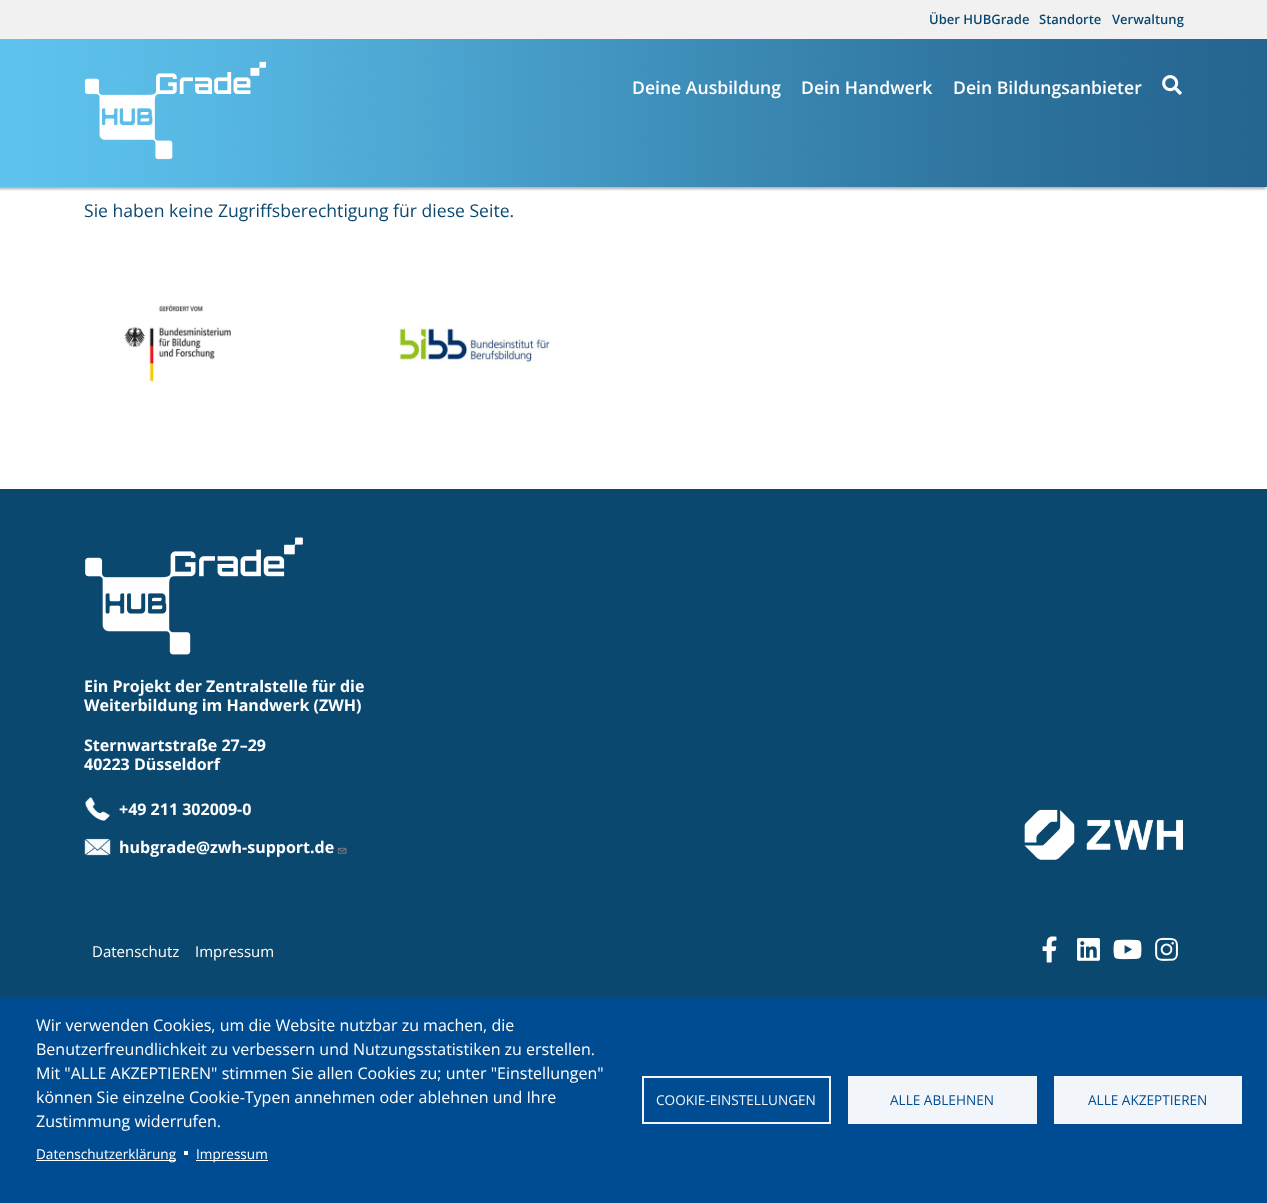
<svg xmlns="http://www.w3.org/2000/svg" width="1267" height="1203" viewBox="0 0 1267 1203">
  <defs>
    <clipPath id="clip1"><path d="M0 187h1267v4H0z"/></clipPath>
  </defs>
  <rect width="100%" height="100%" fill="#fff"/>
  <g clip-path="url(#clip1)">
    <path d="M-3 0h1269v189H-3z" fill="#00000054" filter="blur(1.5px)"/>
  </g>
  <image x="0" y="39" width="1267" height="148" href="img/1.png"/>
  <path d="M0 0h1267v39H0z" fill="#f1f1f1"/>
  <image x="84" y="61" width="183" height="99" href="img/2.png"/>
  <image x="1162" y="75" width="20" height="20" href="img/3.png"/>
  <image x="124" y="304" width="107" height="78" href="img/4.png"/>
  <image x="399" y="327" width="151" height="36" href="img/5.png"/>
  <path d="M0 489h1267v508H0z" fill="#0b4870"/>
  <image x="85" y="537" width="218" height="118" href="img/6.png"/>
  <image x="85" y="797" width="25" height="24" href="img/7.png"/>
  <image x="84" y="838" width="27" height="18" href="img/8.png"/>
  <image x="337" y="847" width="10" height="7" href="img/9.png"/>
  <image x="1024" y="809" width="159" height="51" href="img/10.png"/>
  <image x="1042" y="936" width="15" height="27" href="img/11.png"/>
  <image x="1077" y="938" width="23" height="23" href="img/12.png"/>
  <image x="1113" y="939" width="29" height="21" href="img/13.png"/>
  <image x="1155" y="937" width="23" height="24" href="img/14.png"/>
  <path d="M0 997h1267v206H0z" fill="#004c93"/>
  <path d="M36 1160h140v1H36z" fill="#fff"/>
  <path d="M184 1151h4v4H184z" fill="#fff"/>
  <path d="M196 1160h72v1H196z" fill="#fff"/>
  <path d="M643 1077h187v46H643z" fill="none" stroke="#f2f6fa" stroke-width="2"/>
  <path d="M848 1076h189v48H848z" fill="#f2f6fa"/>
  <path d="M1054 1076h188v48H1054z" fill="#f2f6fa"/>
  <g font-family="Open Sans" font-size="13" font-weight="600" fill="#0b4870">
    <text x="929" y="24">Über HUBGrade</text>
    <text x="1039" y="24">Standorte</text>
    <text x="1112" y="24">Verwaltung</text>
  </g>
  <g font-family="Open Sans" font-size="17.6" font-weight="600" fill="#fff">
    <text x="632" y="94">Deine Ausbildung</text>
    <text x="801" y="94">Dein Handwerk</text>
    <text x="953" y="94">Dein Bildungsanbieter</text>
  </g>
  <text x="84" y="217" font-family="Open Sans" font-size="17.6" fill="#0b4870">Sie haben keine Zugriffsberechtigung für diese Seite.</text>
  <g font-family="Open Sans" font-size="16" font-weight="bold" fill="#fff">
    <text x="84" y="692">Ein Projekt der Zentralstelle für die</text>
    <text x="84" y="711">Weiterbildung im Handwerk (ZWH)</text>
    <text x="84" y="751">Sternwartstraße 27–29</text>
    <text x="84" y="770">40223 Düsseldorf</text>
    <text x="119" y="815">+49 211 302009-0</text>
    <text x="119" y="853">hubgrade@zwh-support.de</text>
  </g>
  <g font-family="Open Sans" font-size="15" fill="#fff">
    <text x="92" y="957">Datenschutz</text>
    <text x="195" y="957">Impressum</text>
  </g>
  <g font-family="Open Sans" font-size="16" fill="#fff">
    <text x="36" y="1031">Wir verwenden Cookies, um die Website nutzbar zu machen, die</text>
    <text x="36" y="1055">Benutzerfreundlichkeit zu verbessern und Nutzungsstatistiken zu erstellen.</text>
    <text x="36" y="1079">Mit "ALLE AKZEPTIEREN" stimmen Sie allen Cookies zu; unter "Einstellungen"</text>
    <text x="36" y="1103">können Sie einzelne Cookie-Typen annehmen oder ablehnen und Ihre</text>
    <text x="36" y="1127">Zustimmung widerrufen.</text>
  </g>
  <g font-family="Open Sans" font-size="13.6" fill="#fff">
    <text x="36" y="1159">Datenschutzerklärung</text>
    <text x="196" y="1159">Impressum</text>
  </g>
  <text x="656" y="1105" font-family="Open Sans" font-size="13.6" fill="#f2f6fa">COOKIE-EINSTELLUNGEN</text>
  <g font-family="Open Sans" font-size="13.6" fill="#004c93">
    <text x="890" y="1105">ALLE ABLEHNEN</text>
    <text x="1088" y="1105">ALLE AKZEPTIEREN</text>
  </g>
</svg>
